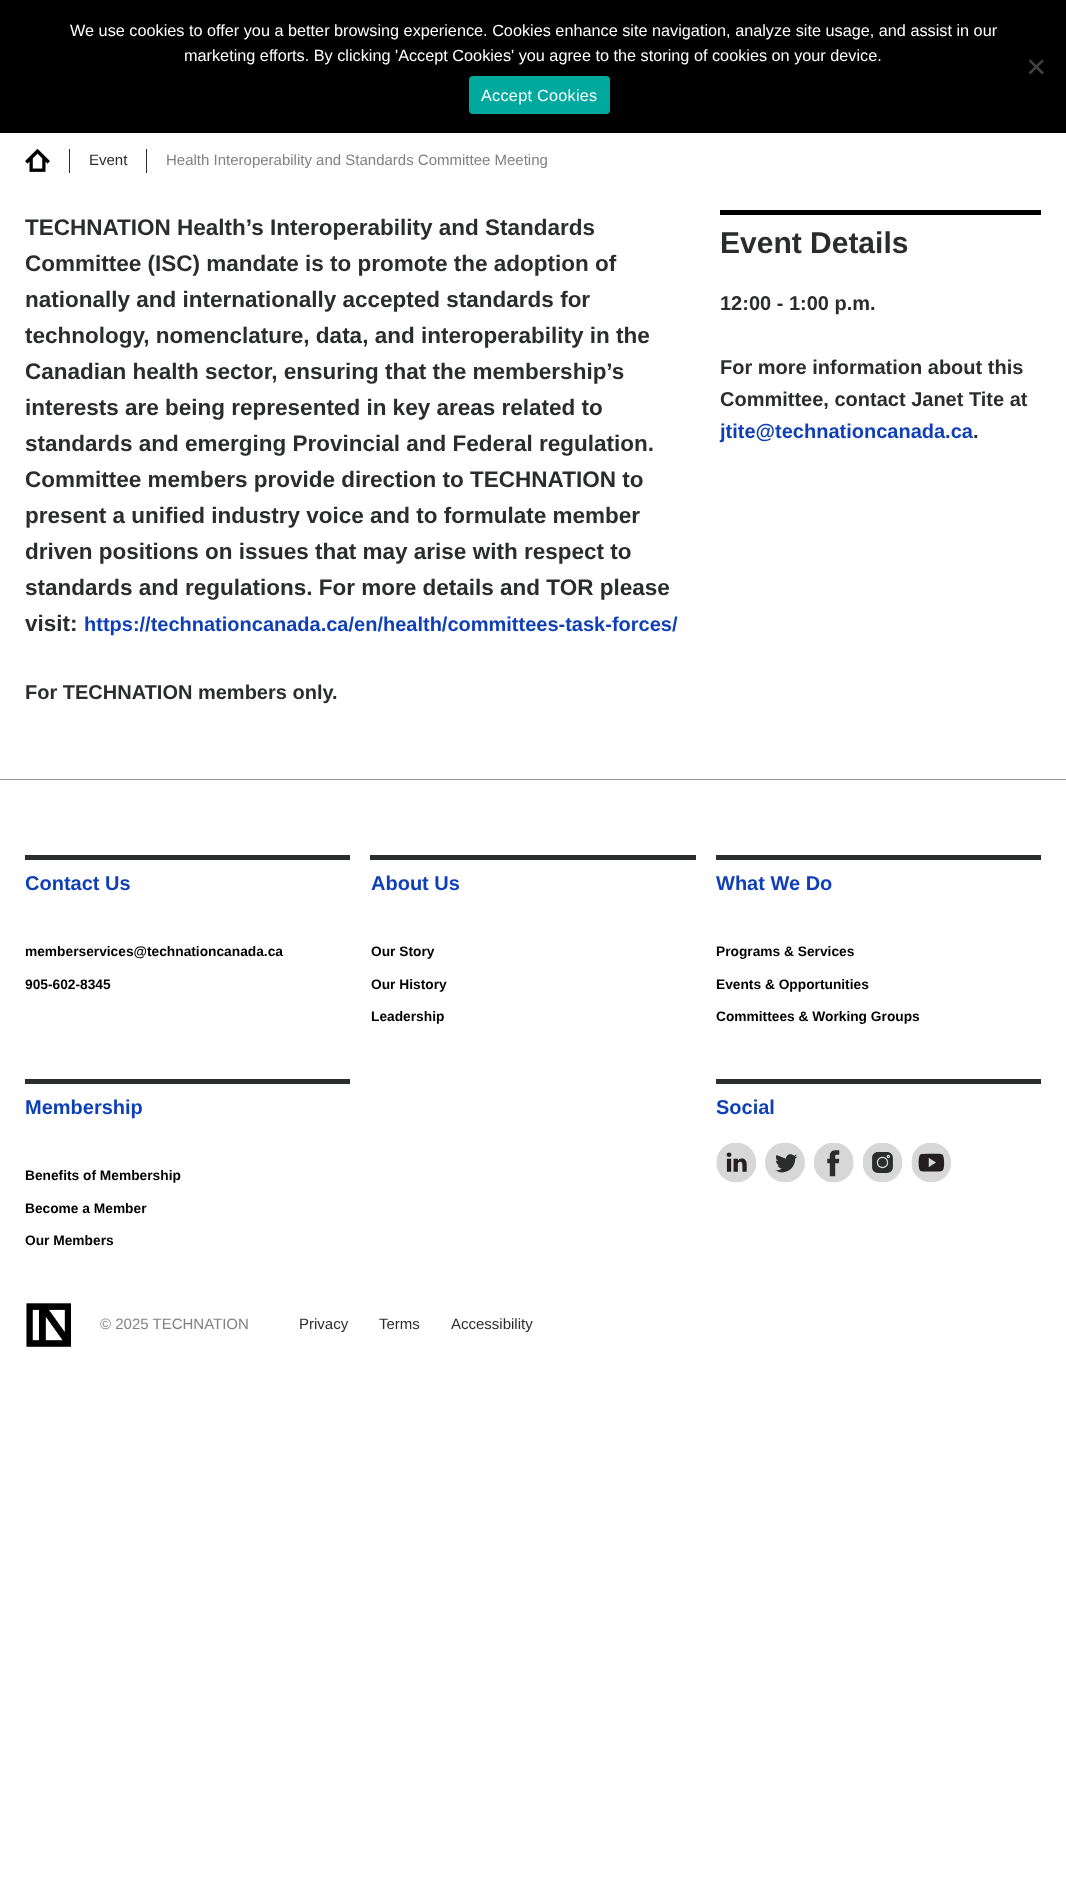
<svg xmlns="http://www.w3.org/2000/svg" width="1066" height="1884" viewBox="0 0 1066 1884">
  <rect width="100%" height="100%" fill="#fff"/>
  <path d="M0 0h1066v133H0z" fill="#000"/>
  <path d="M1042 59.5L1044 61L1030.5 74.5L1028.5 72.5Z" fill="#404040"/>
  <path d="M1028.5 61L1030.5 59.5L1044 72.5L1042 74.5Z" fill="#404040"/>
  <rect x="469" y="76" width="141" height="38" rx="4" fill="#00a99d"/>
  <image x="25" y="149" width="25" height="23" href="img/1.png"/>
  <path d="M69 149h1v24H69z" fill="#2b2d2c"/>
  <path d="M146 149h1v24H146z" fill="#2b2d2c"/>
  <path d="M720 210h321v5H720z" fill="#000"/>
  <path d="M0 779h1066v1H0z" fill="#979797"/>
  <path d="M25 855h325v5H25z" fill="#2b2d2c"/>
  <path d="M370 855h326v5H370z" fill="#2b2d2c"/>
  <path d="M716 855h325v5H716z" fill="#2b2d2c"/>
  <path d="M25 1079h325v5H25z" fill="#2b2d2c"/>
  <path d="M716 1079h325v5H716z" fill="#2b2d2c"/>
  <image x="716" y="1143" width="40" height="40" href="img/2.png"/>
  <image x="765" y="1143" width="40" height="40" href="img/3.png"/>
  <image x="814" y="1143" width="40" height="40" href="img/4.png"/>
  <image x="863" y="1143" width="40" height="40" href="img/5.png"/>
  <image x="911" y="1143" width="40" height="39" href="img/6.png"/>
  <image x="26" y="1303" width="45" height="44" href="img/7.png"/>
  <g font-family="Liberation Sans" font-size="16.25" fill="#fff">
    <text x="70" y="36">We use cookies to offer you a better browsing experience. Cookies enhance site navigation, analyze site usage, and assist in our</text>
    <text x="184" y="61">marketing efforts. By clicking 'Accept Cookies' you agree to the storing of cookies on your device.</text>
  </g>
  <text x="481" y="101" font-family="Liberation Sans" font-size="16.25" letter-spacing="0.25" fill="#fff">Accept Cookies</text>
  <text x="89" y="165" font-family="Liberation Sans" font-size="15" fill="#2b2d2c">Event</text>
  <text x="166" y="165" font-family="Liberation Sans" font-size="15" fill="#808180">Health Interoperability and Standards Committee Meeting</text>
  <g font-family="Liberation Sans" font-size="22.5" font-weight="bold" fill="#2b2d2c">
    <text x="25" y="235">TECHNATION Health’s Interoperability and Standards</text>
    <text x="25" y="271">Committee (ISC) mandate is to promote the adoption of</text>
    <text x="25" y="307">nationally and internationally accepted standards for</text>
    <text x="25" y="343">technology, nomenclature, data, and interoperability in the</text>
    <text x="25" y="379">Canadian health sector, ensuring that the membership’s</text>
    <text x="25" y="415">interests are being represented in key areas related to</text>
    <text x="25" y="451">standards and emerging Provincial and Federal regulation.</text>
    <text x="25" y="487">Committee members provide direction to TECHNATION to</text>
    <text x="25" y="523">present a unified industry voice and to formulate member</text>
    <text x="25" y="559">driven positions on issues that may arise with respect to</text>
    <text x="25" y="595">standards and regulations. For more details and TOR please</text>
    <text x="25" y="631">visit:</text>
  </g>
  <text x="84" y="631" font-family="Liberation Sans" font-size="20" font-weight="bold" fill="#0f3fb7">https://technationcanada.ca/en/health/committees-task-forces/</text>
  <text x="25" y="699" font-family="Liberation Sans" font-size="20" font-weight="bold" fill="#2b2d2c">For TECHNATION members only.</text>
  <text x="720" y="253" font-family="Liberation Sans" font-size="30" font-weight="bold" fill="#2b2d2c">Event Details</text>
  <g font-family="Liberation Sans" font-size="20" font-weight="bold" fill="#2b2d2c">
    <text x="720" y="310">12:00 - 1:00 p.m.</text>
    <text x="720" y="374">For more information about this</text>
    <text x="720" y="406">Committee, contact Janet Tite at</text>
  </g>
  <text x="720" y="438" font-family="Liberation Sans" font-size="20" font-weight="bold" fill="#0f3fb7">jtite@technationcanada.ca</text>
  <text x="973" y="438" font-family="Liberation Sans" font-size="20" font-weight="bold" fill="#2b2d2c">.</text>
  <text x="25" y="890" font-family="Liberation Sans" font-size="20" font-weight="bold" fill="#0f3fb7">Contact Us</text>
  <g font-family="Liberation Sans" font-size="13.75" font-weight="bold" fill="#000">
    <text x="25" y="956">memberservices@technationcanada.ca</text>
    <text x="25" y="989">905-602-8345</text>
  </g>
  <text x="371" y="890" font-family="Liberation Sans" font-size="20" font-weight="bold" fill="#0f3fb7">About Us</text>
  <g font-family="Liberation Sans" font-size="13.75" font-weight="bold" fill="#000">
    <text x="371" y="956">Our Story</text>
    <text x="371" y="989">Our History</text>
    <text x="371" y="1021">Leadership</text>
  </g>
  <text x="716" y="890" font-family="Liberation Sans" font-size="20" font-weight="bold" fill="#0f3fb7">What We Do</text>
  <g font-family="Liberation Sans" font-size="13.75" font-weight="bold" fill="#000">
    <text x="716" y="956">Programs &amp; Services</text>
    <text x="716" y="989">Events &amp; Opportunities</text>
    <text x="716" y="1021">Committees &amp; Working Groups</text>
  </g>
  <text x="25" y="1114" font-family="Liberation Sans" font-size="20" font-weight="bold" fill="#0f3fb7">Membership</text>
  <g font-family="Liberation Sans" font-size="13.75" font-weight="bold" fill="#000">
    <text x="25" y="1180">Benefits of Membership</text>
    <text x="25" y="1213">Become a Member</text>
    <text x="25" y="1245">Our Members</text>
  </g>
  <text x="716" y="1114" font-family="Liberation Sans" font-size="20" font-weight="bold" fill="#0f3fb7">Social</text>
  <text x="100" y="1329" font-family="Liberation Sans" font-size="15" fill="#808180">© 2025 TECHNATION</text>
  <g font-family="Liberation Sans" font-size="15" fill="#2b2d2c">
    <text x="299" y="1329">Privacy</text>
    <text x="379" y="1329">Terms</text>
    <text x="451" y="1329">Accessibility</text>
  </g>
</svg>
